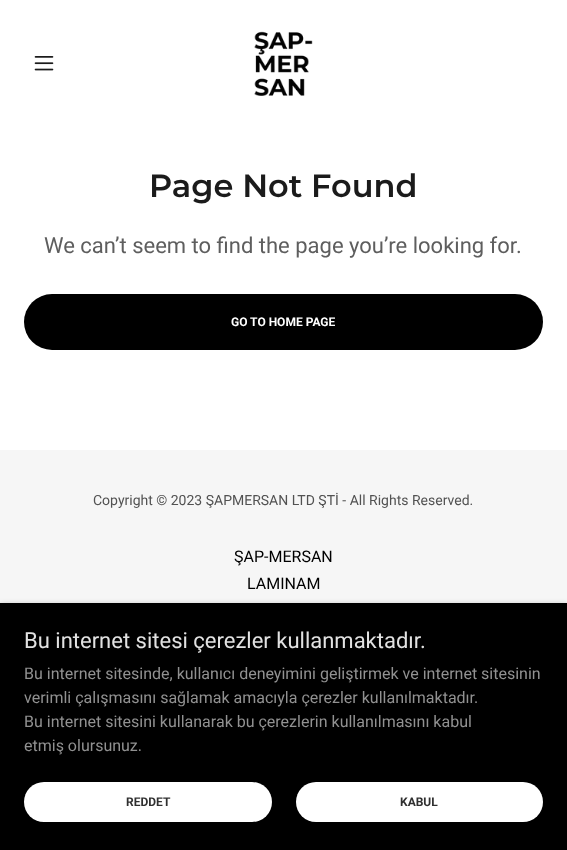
<svg xmlns="http://www.w3.org/2000/svg" width="567" height="850" viewBox="0 0 567 850">
  <rect width="100%" height="100%" fill="#f6f6f6"/>
  <path d="M0 0h567v450H0z" fill="#fff"/>
  <image x="34" y="56" width="20" height="15" href="img/1.png"/>
  <image x="254" y="31" width="59" height="65" href="img/2.png"/>
  <rect x="24" y="294" width="519" height="56" rx="28" fill="#000"/>
  <path d="M0 605h567v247H0z" fill="#0000004d" filter="blur(3px)"/>
  <path d="M0 603h567v247H0z" fill="#000"/>
  <rect x="24" y="782" width="248" height="40" rx="20" fill="#fff"/>
  <rect x="296" y="782" width="247" height="40" rx="20" fill="#fff"/>
  <text x="149" y="197" font-family="Montserrat" font-size="32" font-weight="600" fill="#1b1b1b">Page Not Found</text>
  <text x="44" y="253" font-family="Roboto" font-size="22" fill="#5e5e5e">We can’t seem to find the page you’re looking for.</text>
  <text x="231" y="326" font-family="Roboto" font-size="12" font-weight="bold" fill="#fff">GO TO HOME PAGE</text>
  <text x="93" y="505" font-family="Roboto" font-size="14" fill="#525252">Copyright © 2023 ŞAPMERSAN LTD ŞTİ - All Rights Reserved.</text>
  <g font-family="Roboto" font-size="16" fill="#000">
    <text x="234" y="562">ŞAP-MERSAN</text>
    <text x="247" y="589">LAMINAM</text>
  </g>
  <text x="24" y="648" font-family="Roboto" font-size="22" fill="#e2e2e2">Bu internet sitesi çerezler kullanmaktadır.</text>
  <g font-family="Roboto" font-size="16" fill="#919191">
    <text x="24" y="679">Bu internet sitesinde, kullanıcı deneyimini geliştirmek ve internet sitesinin</text>
    <text x="24" y="703">verimli çalışmasını sağlamak amacıyla çerezler kullanılmaktadır.</text>
    <text x="24" y="727">Bu internet sitesini kullanarak bu çerezlerin kullanılmasını kabul</text>
    <text x="24" y="751">etmiş olursunuz.</text>
  </g>
  <g font-family="Roboto" font-size="12" font-weight="bold" fill="#303030">
    <text x="126" y="806">REDDET</text>
    <text x="400" y="806">KABUL</text>
  </g>
</svg>
